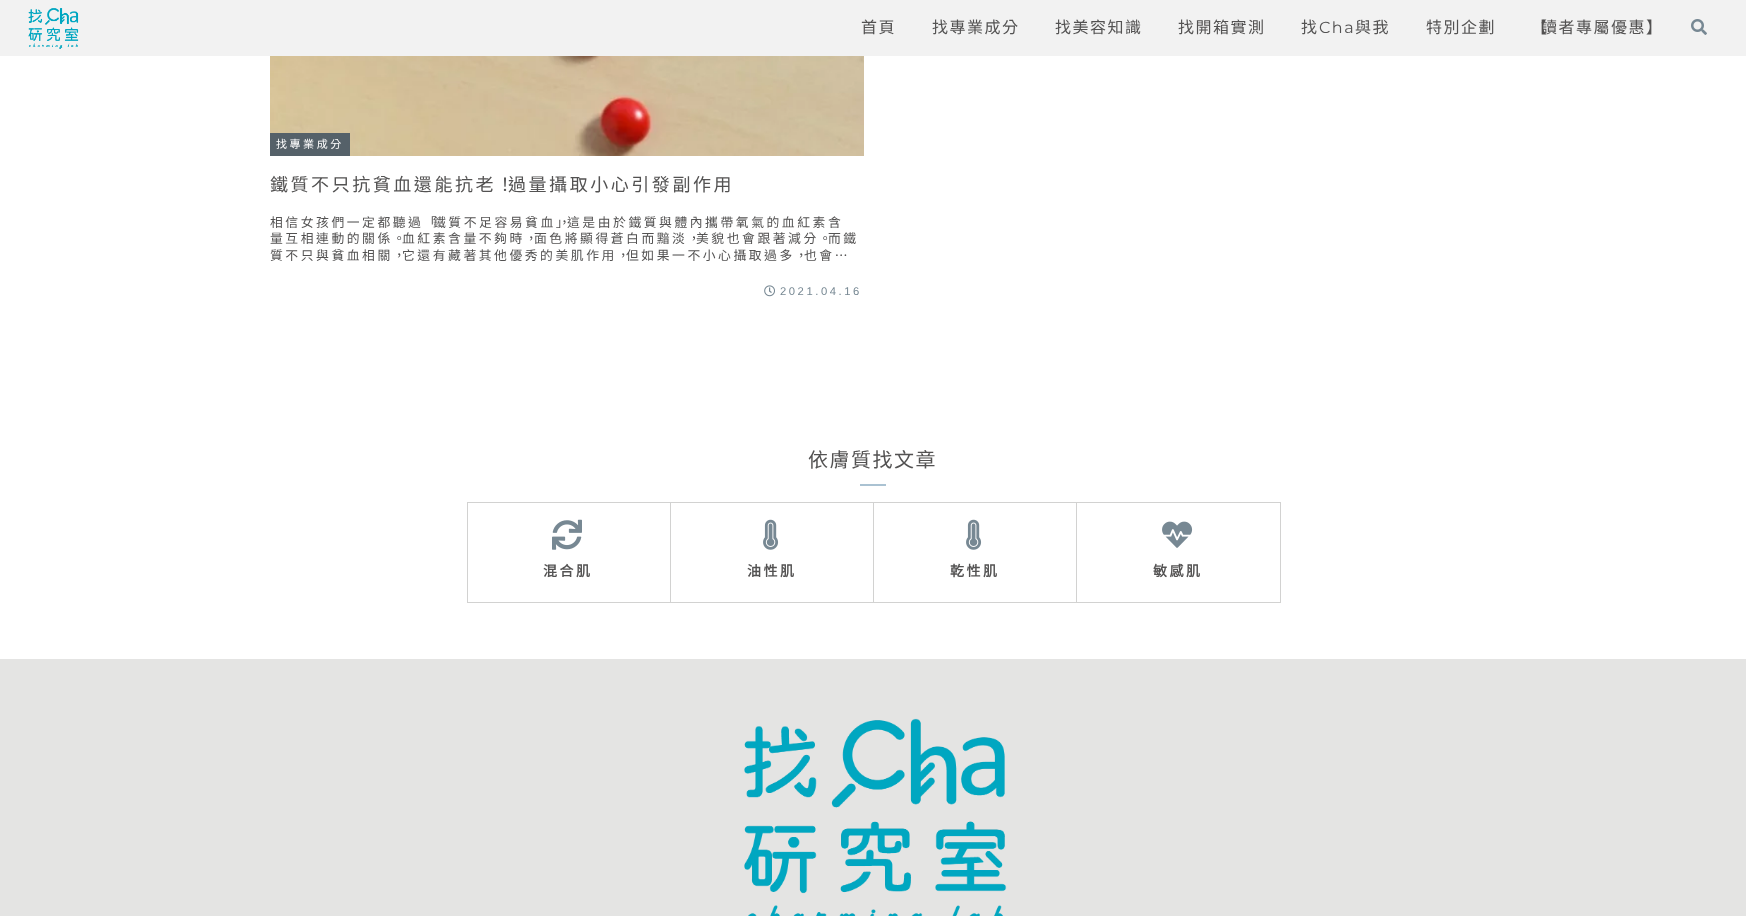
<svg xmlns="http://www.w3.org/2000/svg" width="1746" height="916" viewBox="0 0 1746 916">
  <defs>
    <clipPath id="clip1"><path d="M467 502h203v100H467z"/></clipPath>
    <clipPath id="clip2"><path d="M670 502h203v100H670z"/></clipPath>
    <clipPath id="clip3"><path d="M873 502h203v100H873z"/></clipPath>
    <clipPath id="clip4"><path d="M1076 502h204v100H1076z"/></clipPath>
  </defs>
  <rect width="100%" height="100%" fill="#fff"/>
  <path d="M0 0h1746v56H0z" fill="#f2f2f2"/>
  <image x="28" y="8" width="51" height="41" href="img/1.png"/>
  <image x="1691" y="19" width="16" height="16" href="img/2.png"/>
  <image x="270" y="56" width="594" height="100" href="img/3.png"/>
  <path d="M270 133h80v23H270z" fill="#556169"/>
  <image x="764" y="285" width="11" height="12" href="img/4.png"/>
  <path d="M860 484h26v2H860z" fill="#aac2d2"/>
  <path d="M467 602h1v1H467z" fill="#d2d2d1"/>
  <path d="M468 602V603H671V503H670V602Z" fill="#d2d2d1"/>
  <g clip-path="url(#clip1)">
    <path d="M368 403H769V701H368ZM468 503H671V603H468Z" fill="#d2d2d1" fill-rule="evenodd"/>
  </g>
  <image x="552" y="519" width="30" height="31" href="img/5.png"/>
  <path d="M671 602V603H874V503H873V602Z" fill="#d2d2d1"/>
  <g clip-path="url(#clip2)">
    <path d="M571 403H972V701H571ZM671 503H874V603H671Z" fill="#d2d2d1" fill-rule="evenodd"/>
  </g>
  <image x="763" y="519" width="16" height="31" href="img/6.png"/>
  <path d="M874 602V603H1077V503H1076V602Z" fill="#d2d2d1"/>
  <g clip-path="url(#clip3)">
    <path d="M774 403H1175V701H774ZM874 503H1077V603H874Z" fill="#d2d2d1" fill-rule="evenodd"/>
  </g>
  <image x="966" y="519" width="16" height="31" href="img/6.png"/>
  <path d="M1280 502h1v1H1280z" fill="#d2d2d1"/>
  <path d="M1077 602V603H1281V503H1280V602Z" fill="#d2d2d1"/>
  <g clip-path="url(#clip4)">
    <path d="M977 403H1379V701H977ZM1077 503H1281V603H1077Z" fill="#d2d2d1" fill-rule="evenodd"/>
  </g>
  <image x="1162" y="521" width="31" height="27" href="img/7.png"/>
  <path d="M0 659h1746v257H0z" fill="#e4e4e3"/>
  <image x="744" y="718" width="263" height="198" href="img/8.png"/>
  <g font-family="Noto Sans CJK TC" font-size="16" letter-spacing="1.5" fill="#535252">
    <text x="861" y="33">首頁</text>
    <text x="932" y="33">找專業成分</text>
    <text x="1055" y="33">找美容知識</text>
    <text x="1178" y="33">找開箱實測</text>
    <text x="1301" y="33">找</text>
  </g>
  <text x="1319" y="33" font-family="Montserrat" font-size="16" letter-spacing="1.5" fill="#535252">Cha</text>
  <g font-family="Noto Sans CJK TC" font-size="16" letter-spacing="1.5" fill="#535252">
    <text x="1355" y="33">與我</text>
    <text x="1426" y="33">特別企劃</text>
    <text x="1531" y="33">【</text>
    <text x="1541" y="33">讀者專屬優惠】</text>
  </g>
  <text x="276" y="148" font-family="Noto Sans CJK TC" font-size="11" letter-spacing="2.55" fill="#fff">找專業成分</text>
  <text x="270" y="191" font-family="Noto Sans CJK TC" font-size="18" letter-spacing="2.55" fill="#535252">鐵質不只抗貧血還能抗老！</text>
  <text x="508" y="191" font-family="Noto Sans CJK TC" font-size="18" letter-spacing="2.55" fill="#535252">過量攝取小心引發副作用</text>
  <g font-family="Noto Sans CJK TC" font-size="12.8" letter-spacing="2.55" fill="#535252">
    <text x="270" y="227">相信女孩們一定都聽過「</text>
    <text x="433" y="227">鐵質不足容易貧血」</text>
    <text x="558" y="227">，</text>
    <text x="567" y="227">這是由於鐵質與體內攜帶氧氣的血紅素含</text>
    <text x="270" y="243">量互相連動的關係。</text>
    <text x="402" y="243">血紅素含量不夠時，</text>
    <text x="534" y="243">面色將顯得蒼白而黯淡，</text>
    <text x="696" y="243">美貌也會跟著減分。</text>
    <text x="828" y="243">而鐵</text>
    <text x="270" y="260">質不只與貧血相關，</text>
    <text x="402" y="260">它還有藏著其他優秀的美肌作用，</text>
    <text x="626" y="260">但如果一不小心攝取過多，</text>
    <text x="804" y="260">也會…</text>
  </g>
  <text x="780" y="295" font-family="Liberation Sans" font-size="11.25" letter-spacing="2.55" fill="#778893">2021.04.16</text>
  <text x="808" y="467" font-family="Noto Sans CJK TC" font-size="20" letter-spacing="1.5" fill="#535252">依膚質找文章</text>
  <g font-family="Noto Sans CJK TC" font-size="14" font-weight="bold" letter-spacing="2.55" fill="#535252">
    <text x="543" y="576">混合肌</text>
    <text x="747" y="576">油性肌</text>
    <text x="950" y="576">乾性肌</text>
    <text x="1153" y="576">敏感肌</text>
  </g>
</svg>
